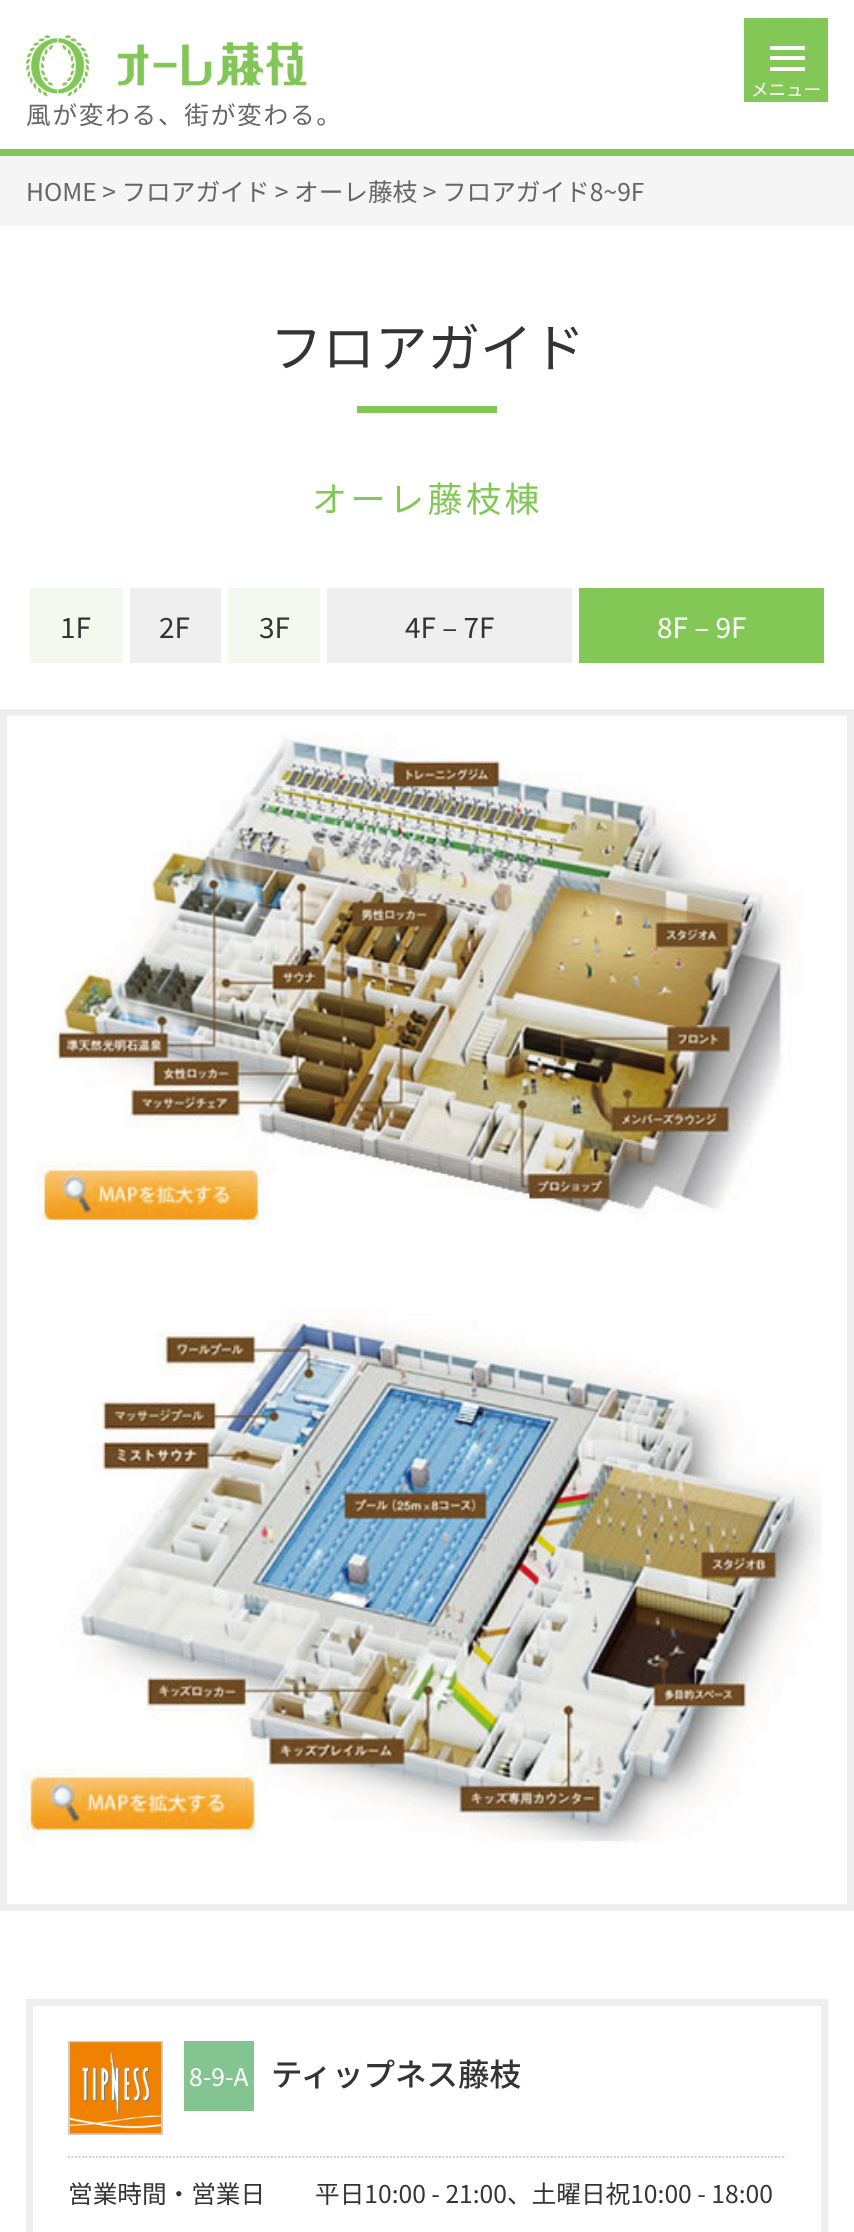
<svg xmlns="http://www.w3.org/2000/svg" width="854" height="2232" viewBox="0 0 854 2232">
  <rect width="100%" height="100%" fill="#fff"/>
  <path d="M0 149h854v7H0z" fill="#83c757"/>
  <image x="26" y="35" width="281" height="62" href="img/1.png"/>
  <path d="M744 18h84v84H744z" fill="#83c757"/>
  <path d="M770 46h35v4H770z" fill="#fff"/>
  <path d="M770 56h35v4H770z" fill="#fff"/>
  <path d="M770 67h35v4H770z" fill="#fff"/>
  <path d="M0 156h854v70H0z" fill="#f5f5f5"/>
  <path d="M357 406h140v7H357z" fill="#83c757"/>
  <path d="M30 588h93v75H30z" fill="#f3f9ee"/>
  <path d="M130 588h91v75H130z" fill="#efefef"/>
  <path d="M228 588h92v75H228z" fill="#f3f9ee"/>
  <path d="M327 588h245v75H327z" fill="#efefef"/>
  <path d="M579 588h245v75H579z" fill="#83c757"/>
  <path d="M3.5 712.5h847v1195H3.5z" fill="none" stroke="#eee" stroke-width="7"/>
  <image x="7" y="715" width="840" height="512" href="img/2.png"/>
  <image x="21" y="1307" width="801" height="541" href="img/3.png"/>
  <path d="M29.5 2002.5h795v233H29.5z" fill="none" stroke="#eee" stroke-width="7"/>
  <path d="M69 2042h93v92H69z" fill="none" stroke="#ccc" stroke-width="2"/>
  <image x="70" y="2042" width="91" height="92" href="img/4.png"/>
  <path d="M184 2041h70v70H184z" fill="#84c490"/>
  <path d="M68 2157H786" fill="none" stroke="#ccc" stroke-width="1.8" stroke-dasharray="1.75 1.75"/>
  <text x="751" y="96" font-family="Noto Sans JP" font-size="17.5" fill="#fff">メニュー</text>
  <text x="26" y="124" font-family="Noto Sans JP" font-size="24.65" letter-spacing="1.75" fill="#666">風が変わる、街が変わる。</text>
  <text x="26" y="201" font-family="Noto Sans JP" font-size="24.65" fill="#666">HOME &gt; フロアガイド &gt; オーレ藤枝 &gt; フロアガイド8~9F</text>
  <text x="270" y="367" font-family="Noto Sans JP" font-size="52.5" fill="#343434">フロアガイド</text>
  <text x="312" y="512" font-family="Noto Sans JP" font-size="35" letter-spacing="3.5" fill="#83c757">オーレ藤枝棟</text>
  <g font-family="Noto Sans JP" font-size="28" fill="#343434">
    <text x="60" y="638">1F</text>
    <text x="159" y="638">2F</text>
    <text x="259" y="638">3F</text>
    <text x="405" y="638">4F – 7F</text>
  </g>
  <text x="657" y="638" font-family="Noto Sans JP" font-size="28" fill="#fff">8F – 9F</text>
  <text x="189" y="2086" font-family="Noto Sans JP" font-size="24.65" fill="#fff">8-9-A</text>
  <text x="271" y="2086" font-family="Noto Sans JP" font-size="31.5" font-weight="500" fill="#343434">ティップネス藤枝</text>
  <g font-family="Noto Sans JP" font-size="24.65" fill="#343434">
    <text x="68" y="2203">営業時間・営業日</text>
    <text x="315" y="2203">平日10:00 - 21:00、土曜日祝10:00 - 18:00</text>
  </g>
</svg>
